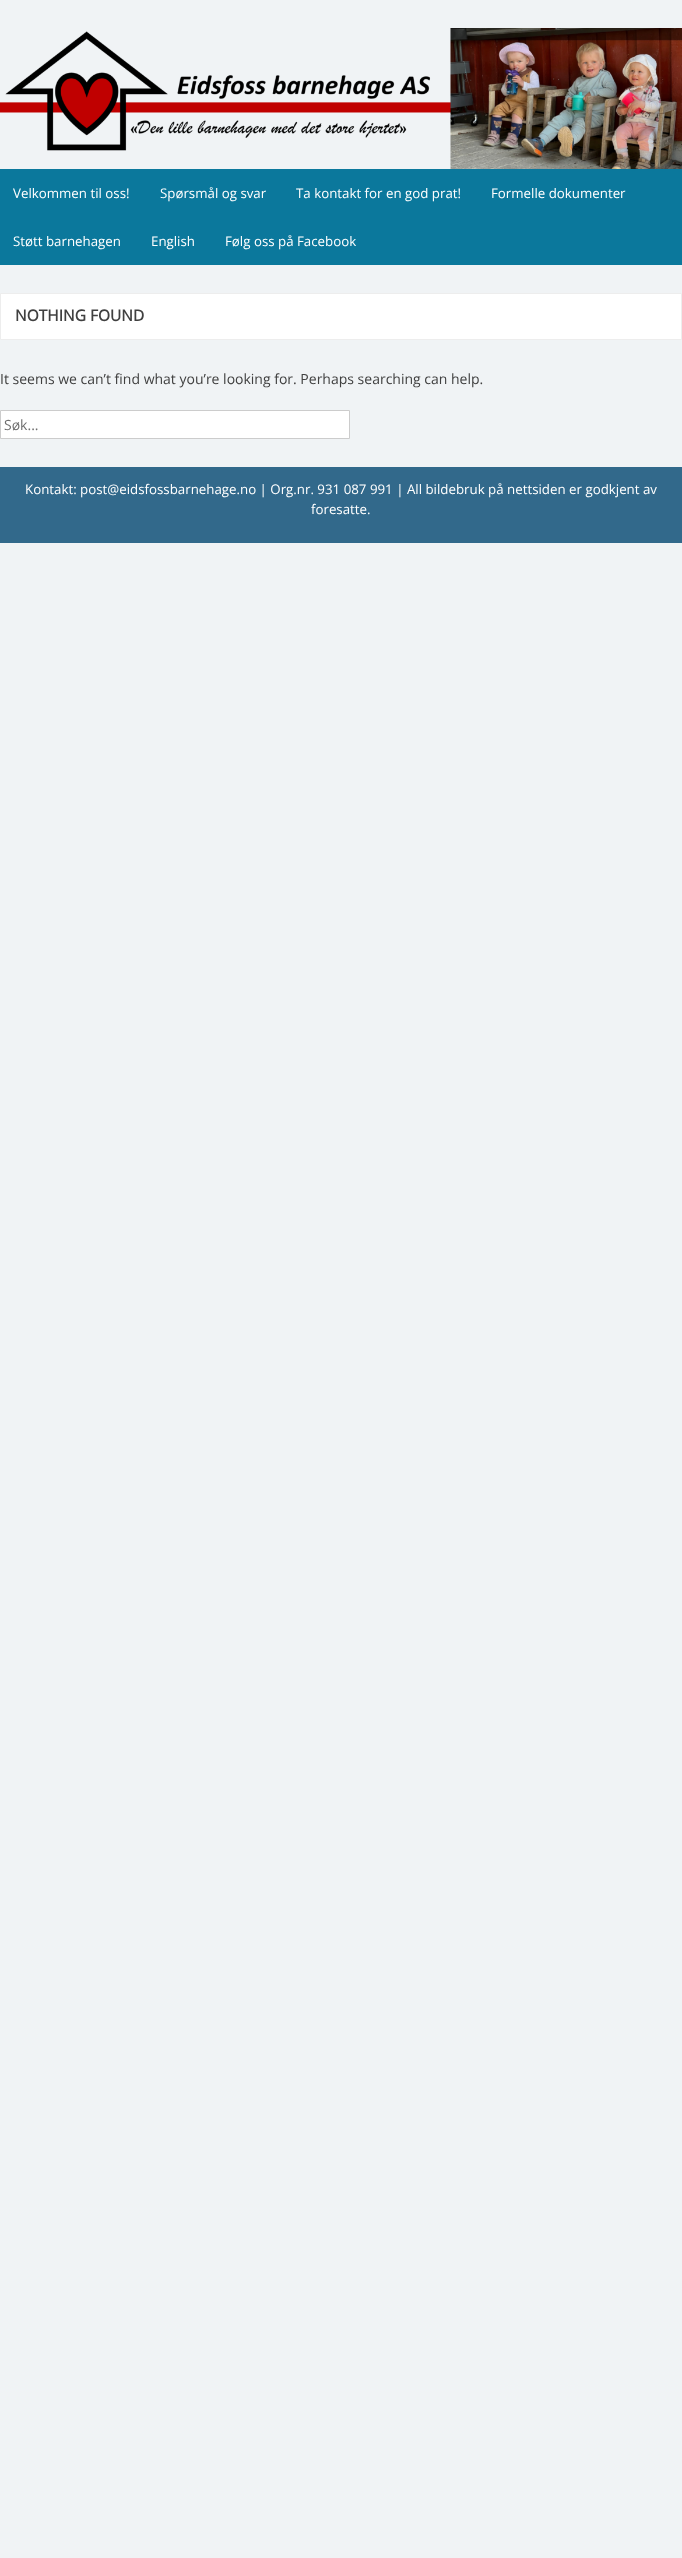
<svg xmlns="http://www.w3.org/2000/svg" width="682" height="2558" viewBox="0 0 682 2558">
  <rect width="100%" height="100%" fill="#f0f3f5"/>
  <image x="0" y="28" width="682" height="141" href="img/1.png"/>
  <path d="M0 169h682v96H0z" fill="#0b789c"/>
  <path d="M0.5 293.5h681v46H0.5z" fill="#fff" stroke="#ededed"/>
  <path d="M0.5 410.5h349v28H0.5z" fill="#fff" stroke="#ccc"/>
  <path d="M0 467h682v76H0z" fill="#32698b"/>
  <g font-family="Open Sans" font-size="13.3" fill="#fff">
    <text x="13" y="198">Velkommen til oss!</text>
    <text x="160" y="198">Spørsmål og svar</text>
    <text x="296" y="198">Ta kontakt for en god prat!</text>
    <text x="491" y="198">Formelle dokumenter</text>
    <text x="13" y="246">Støtt barnehagen</text>
    <text x="151" y="246">English</text>
    <text x="225" y="246">Følg oss på Facebook</text>
  </g>
  <text x="15" y="321" font-family="Open Sans" font-size="15.5" font-weight="bold" fill="#404040">NOTHING FOUND</text>
  <text x="0" y="384" font-family="Open Sans" font-size="14" fill="#404040">It seems we can’t find what you’re looking for. Perhaps searching can help.</text>
  <text x="4" y="430" font-family="Open Sans" font-size="14" fill="#6e6e6e">Søk...</text>
  <g font-family="Open Sans" font-size="13.3" fill="#fff">
    <text x="25" y="494">Kontakt: post@eidsfossbarnehage.no | Org.nr. 931 087 991 | All bildebruk på nettsiden er godkjent av</text>
    <text x="311" y="514">foresatte.</text>
  </g>
</svg>
